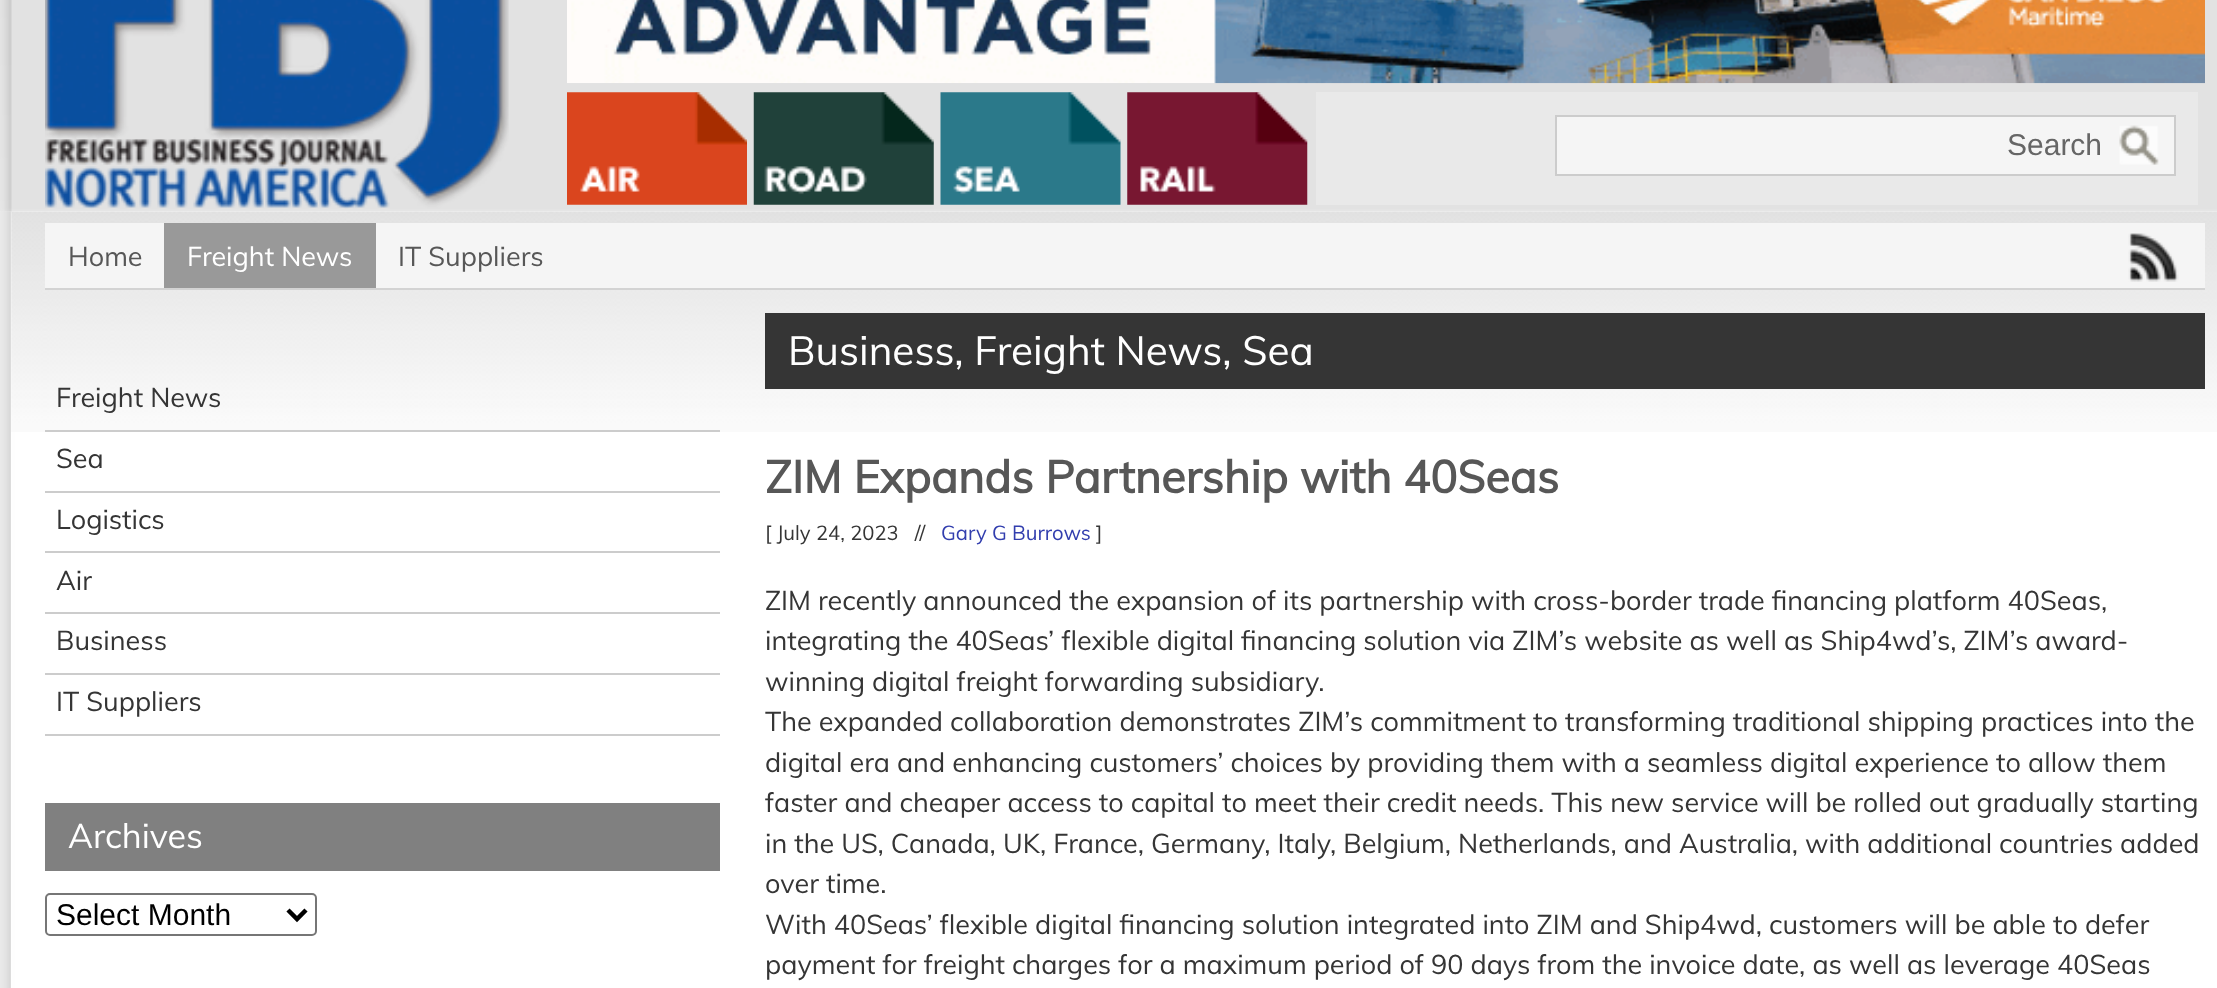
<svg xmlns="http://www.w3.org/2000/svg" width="2217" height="988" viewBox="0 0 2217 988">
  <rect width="100%" height="100%" fill="#fff"/>
  <image x="0" y="208" width="2217" height="4" href="img/1.png"/>
  <image x="0" y="0" width="2217" height="212" href="img/2.png"/>
  <image x="45" y="0" width="464" height="209" href="img/3.png"/>
  <image x="567" y="0" width="1638" height="84" href="img/4.png"/>
  <image x="567" y="92" width="180" height="113" href="img/5.png"/>
  <image x="753" y="92" width="181" height="113" href="img/6.png"/>
  <image x="940" y="92" width="181" height="113" href="img/7.png"/>
  <image x="1127" y="92" width="181" height="113" href="img/8.png"/>
  <path d="M1316 92h882v113H1316z" fill="#e9e9e9"/>
  <path d="M1557 117h617v57H1557z" fill="#f5f5f5"/>
  <image x="2119" y="125" width="40" height="40" href="img/9.png"/>
  <path d="M1556 116h619v59H1556z" fill="none" stroke="#ccc" stroke-width="2"/>
  <image x="0" y="211" width="2217" height="777" href="img/10.png"/>
  <path d="M11 212h1v776H11z" fill="#fff"/>
  <image x="11" y="211" width="2206" height="221" href="img/11.png"/>
  <path d="M45 223h2160v65H45z" fill="#f5f5f5"/>
  <path d="M45 288h2160v2H45z" fill="#d3d3d3"/>
  <path d="M164 223h212v65H164z" fill="#999"/>
  <image x="2128" y="233" width="51" height="49" href="img/12.png"/>
  <path d="M45 430h675v2H45z" fill="#ccc"/>
  <path d="M45 491h675v2H45z" fill="#ccc"/>
  <path d="M45 551h675v2H45z" fill="#ccc"/>
  <path d="M45 612h675v2H45z" fill="#ccc"/>
  <path d="M45 673h675v2H45z" fill="#ccc"/>
  <path d="M45 734h675v2H45z" fill="#ccc"/>
  <path d="M45 803h675v68H45z" fill="#808080"/>
  <rect x="46" y="894" width="270" height="41" rx="4" fill="none" stroke="#767676" stroke-width="2"/>
  <path d="M288 910L297 919L306 910" fill="none" stroke="#000" stroke-width="4.5"/>
  <path d="M765 313h1440v76H765z" fill="#353535"/>
  <text x="2007" y="155" font-family="Liberation Sans" font-size="30" fill="#666">Search</text>
  <text x="68" y="266" font-family="Muli" font-size="27" fill="#575757">Home</text>
  <text x="187" y="266" font-family="Muli" font-size="27" fill="#fff">Freight News</text>
  <text x="398" y="266" font-family="Muli" font-size="27" fill="#575757">IT Suppliers</text>
  <g font-family="Muli" font-size="27" fill="#353535">
    <text x="56" y="407">Freight News</text>
    <text x="56" y="468">Sea</text>
    <text x="56" y="529">Logistics</text>
    <text x="56" y="590">Air</text>
    <text x="56" y="650">Business</text>
    <text x="56" y="711">IT Suppliers</text>
  </g>
  <text x="68" y="848" font-family="Muli" font-size="34" fill="#fff">Archives</text>
  <text x="56" y="925" font-family="Liberation Sans" font-size="30" fill="#000">Select Month</text>
  <text x="788" y="365" font-family="Muli" font-size="40.5" fill="#fff">Business, Freight News, Sea</text>
  <text x="765" y="493" font-family="Muli" font-size="45" font-weight="bold" fill="#575757">ZIM Expands Partnership with 40Seas</text>
  <text x="765" y="540" font-family="Muli" font-size="20.25" fill="#353535" xml:space="preserve">[ July 24, 2023   //</text>
  <text x="941" y="540" font-family="Muli" font-size="20.25" fill="#323eae">Gary G Burrows</text>
  <text x="1096" y="540" font-family="Muli" font-size="20.25" fill="#353535">]</text>
  <g font-family="Muli" font-size="27" fill="#353535">
    <text x="765" y="610">ZIM recently announced the expansion of its partnership with cross-border trade financing platform 40Seas,</text>
    <text x="765" y="650">integrating the 40Seas’ flexible digital financing solution via ZIM’s website as well as Ship4wd’s, ZIM’s award-</text>
    <text x="765" y="691">winning digital freight forwarding subsidiary.</text>
    <text x="765" y="731">The expanded collaboration demonstrates ZIM’s commitment to transforming traditional shipping practices into the</text>
    <text x="765" y="772">digital era and enhancing customers’ choices by providing them with a seamless digital experience to allow them</text>
    <text x="765" y="812">faster and cheaper access to capital to meet their credit needs. This new service will be rolled out gradually starting</text>
    <text x="765" y="853">in the US, Canada, UK, France, Germany, Italy, Belgium, Netherlands, and Australia, with additional countries added</text>
    <text x="765" y="893">over time.</text>
    <text x="765" y="934">With 40Seas’ flexible digital financing solution integrated into ZIM and Ship4wd, customers will be able to defer</text>
    <text x="765" y="974">payment for freight charges for a maximum period of 90 days from the invoice date, as well as leverage 40Seas</text>
  </g>
</svg>
